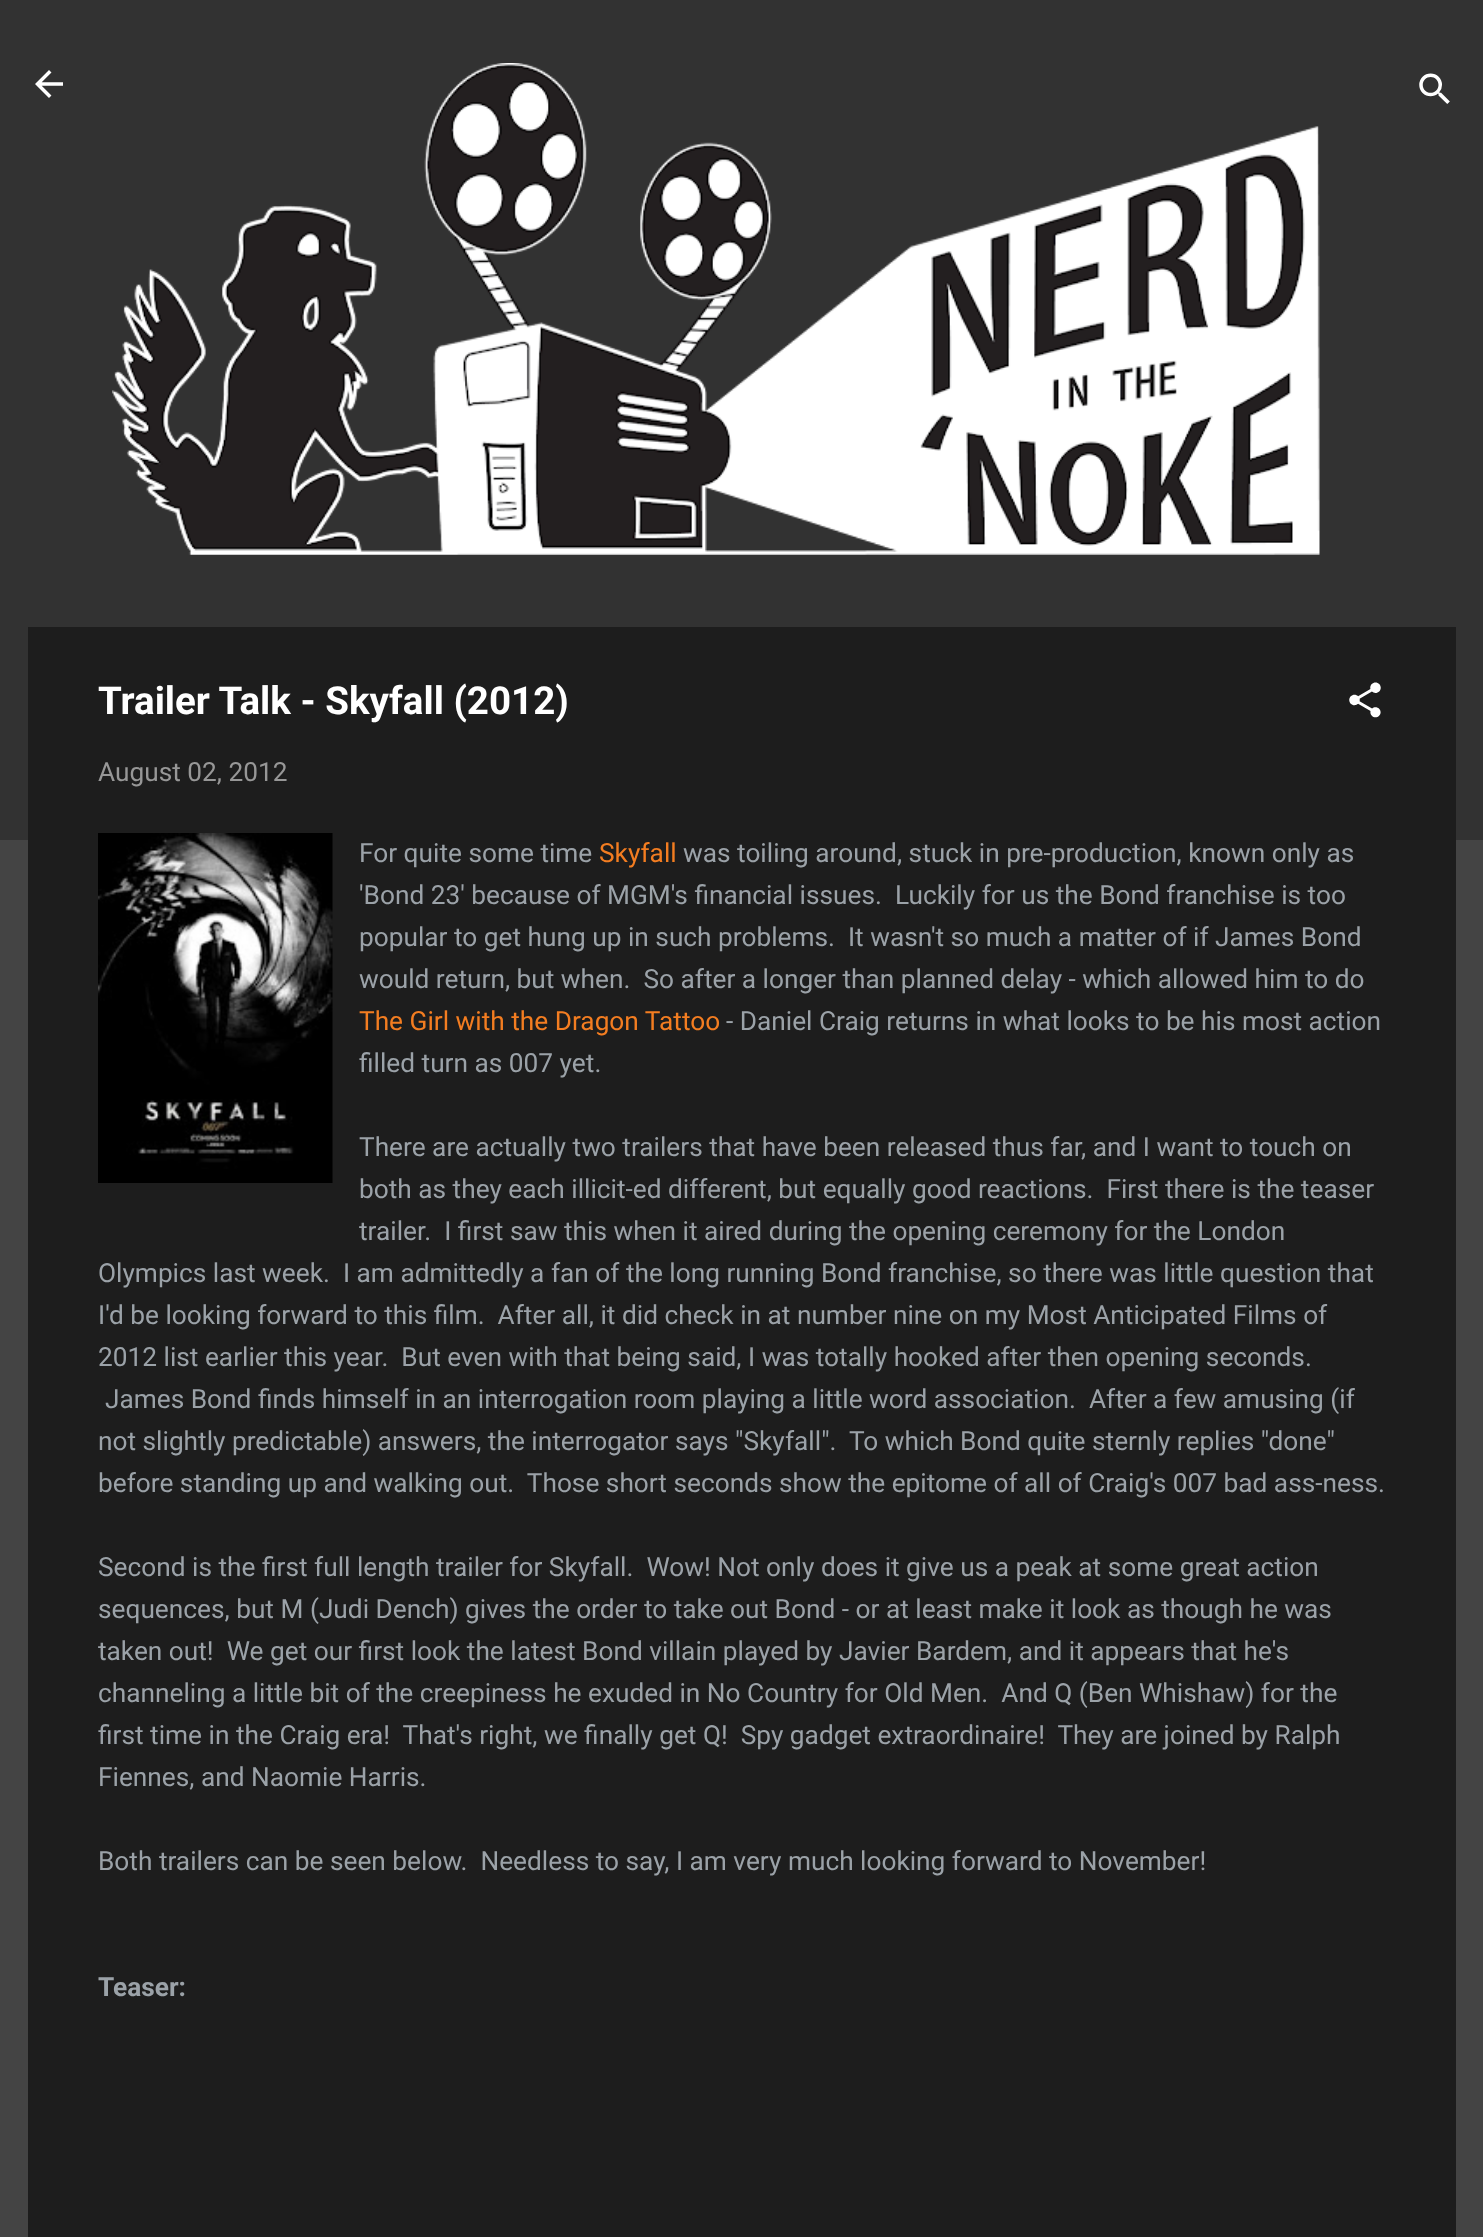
<svg xmlns="http://www.w3.org/2000/svg" width="1483" height="2237" viewBox="0 0 1483 2237">
  <rect width="100%" height="100%" fill="#444"/>
  <path d="M0 0h1483v840H0z" fill="#323232"/>
  <image x="35" y="70" width="28" height="28" href="img/1.png"/>
  <image x="112" y="63" width="1208" height="492" href="img/2.png"/>
  <image x="1419" y="73" width="31" height="31" href="img/3.png"/>
  <path d="M28 627h1428v1610H28z" fill="#1d1d1d"/>
  <image x="1349" y="682" width="32" height="36" href="img/4.png"/>
  <image x="98" y="833" width="235" height="350" href="img/5.png"/>
  <text x="98" y="714" font-family="Roboto" font-size="38.5" font-weight="bold" fill="#fff">Trailer Talk - Skyfall (2012)</text>
  <text x="98" y="781" font-family="Roboto" font-size="26.25" fill="#979797">August 02, 2012</text>
  <text x="359" y="862" font-family="Roboto" font-size="26.25" fill="#9ba2a8">For quite some time</text>
  <text x="599" y="862" font-family="Roboto" font-size="26.25" fill="#f37d21">Skyfall</text>
  <g font-family="Roboto" font-size="26.25" fill="#9ba2a8">
    <text x="683" y="862">was toiling around, stuck in pre-production, known only as</text>
    <text x="359" y="904" xml:space="preserve">'Bond 23' because of MGM's financial issues.  Luckily for us the Bond franchise is too</text>
    <text x="359" y="946" xml:space="preserve">popular to get hung up in such problems.  It wasn't so much a matter of if James Bond</text>
    <text x="359" y="988" xml:space="preserve">would return, but when.  So after a longer than planned delay - which allowed him to do</text>
  </g>
  <text x="359" y="1030" font-family="Roboto" font-size="26.25" fill="#f37d21">The Girl with the Dragon Tattoo</text>
  <g font-family="Roboto" font-size="26.25" fill="#9ba2a8">
    <text x="726" y="1030">- Daniel Craig returns in what looks to be his most action</text>
    <text x="359" y="1072">filled turn as 007 yet.</text>
    <text x="359" y="1156">There are actually two trailers that have been released thus far, and I want to touch on</text>
    <text x="359" y="1198" xml:space="preserve">both as they each illicit-ed different, but equally good reactions.  First there is the teaser</text>
    <text x="359" y="1240" xml:space="preserve">trailer.  I first saw this when it aired during the opening ceremony for the London</text>
    <text x="98" y="1282" xml:space="preserve">Olympics last week.  I am admittedly a fan of the long running Bond franchise, so there was little question that</text>
    <text x="98" y="1324" xml:space="preserve">I'd be looking forward to this film.  After all, it did check in at number nine on my Most Anticipated Films of</text>
    <text x="98" y="1366" xml:space="preserve">2012 list earlier this year.  But even with that being said, I was totally hooked after then opening seconds.</text>
    <text x="105" y="1408" xml:space="preserve">James Bond finds himself in an interrogation room playing a little word association.  After a few amusing (if</text>
    <text x="98" y="1450" xml:space="preserve">not slightly predictable) answers, the interrogator says "Skyfall".  To which Bond quite sternly replies "done"</text>
    <text x="98" y="1492" xml:space="preserve">before standing up and walking out.  Those short seconds show the epitome of all of Craig's 007 bad ass-ness.</text>
    <text x="98" y="1576" xml:space="preserve">Second is the first full length trailer for Skyfall.  Wow! Not only does it give us a peak at some great action</text>
    <text x="98" y="1618">sequences, but M (Judi Dench) gives the order to take out Bond - or at least make it look as though he was</text>
    <text x="98" y="1660" xml:space="preserve">taken out!  We get our first look the latest Bond villain played by Javier Bardem, and it appears that he's</text>
    <text x="98" y="1702" xml:space="preserve">channeling a little bit of the creepiness he exuded in No Country for Old Men.  And Q (Ben Whishaw) for the</text>
    <text x="98" y="1744" xml:space="preserve">first time in the Craig era!  That's right, we finally get Q!  Spy gadget extraordinaire!  They are joined by Ralph</text>
    <text x="98" y="1786">Fiennes, and Naomie Harris.</text>
    <text x="98" y="1870" xml:space="preserve">Both trailers can be seen below.  Needless to say, I am very much looking forward to November!</text>
  </g>
  <text x="98" y="1996" font-family="Roboto" font-size="26.25" font-weight="bold" fill="#9ba2a8">Teaser:</text>
</svg>
